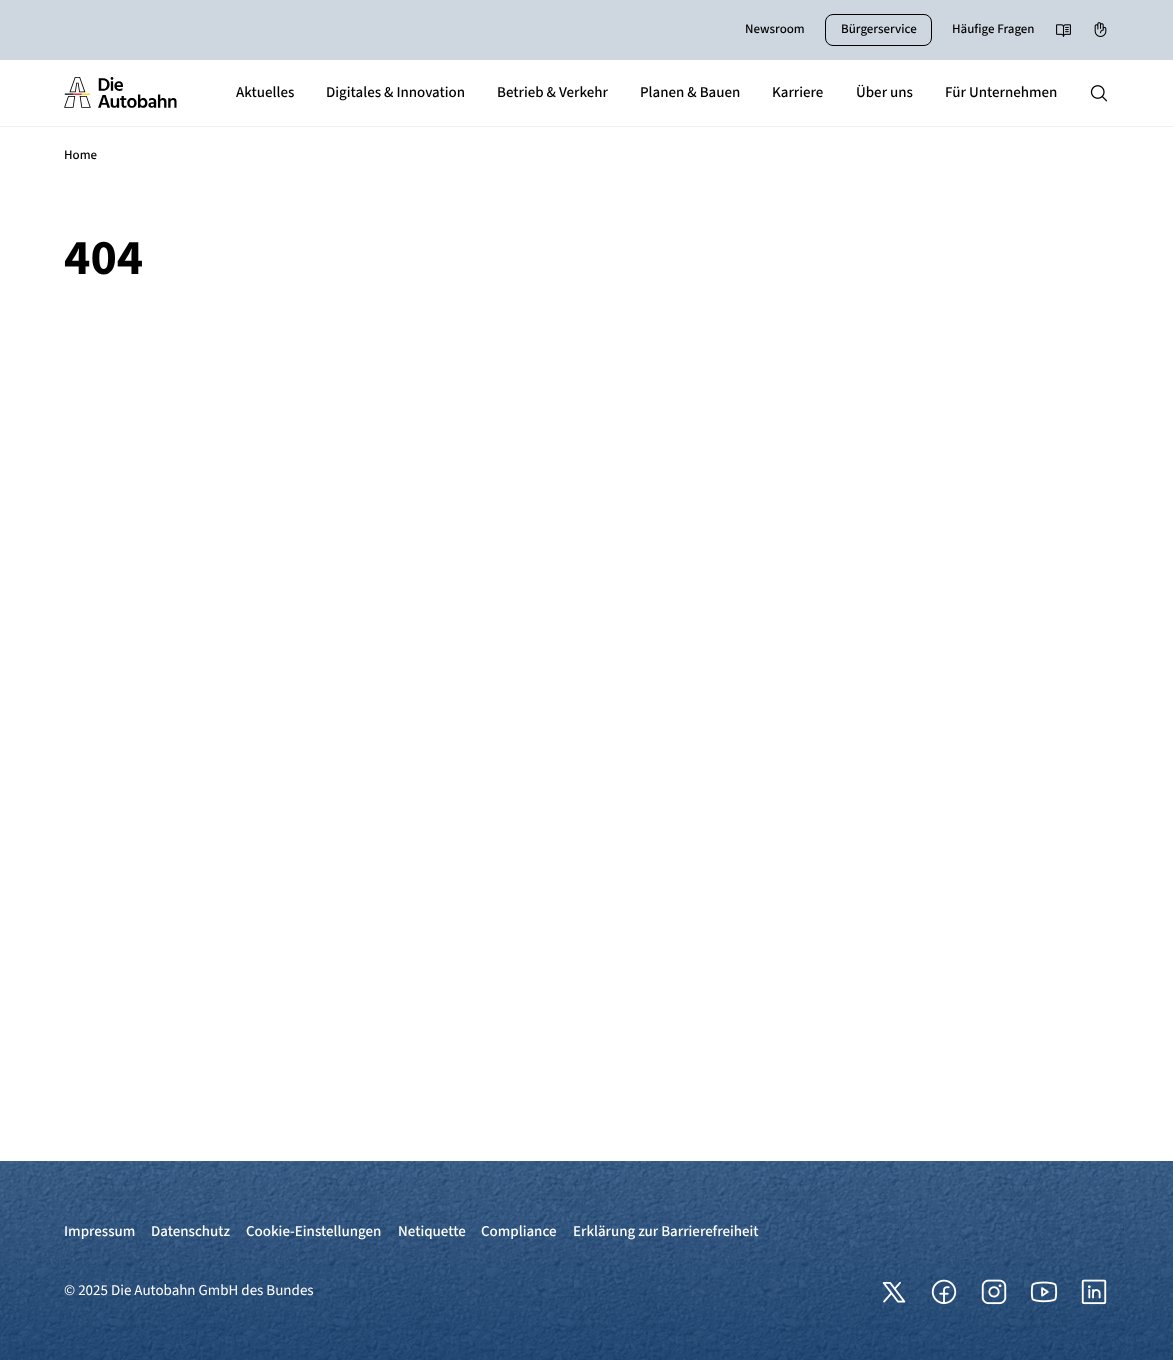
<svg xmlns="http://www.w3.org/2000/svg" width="1173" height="1360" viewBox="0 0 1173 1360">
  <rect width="100%" height="100%" fill="#fff"/>
  <path d="M0 126h1173v1H0z" fill="#f1f1f2"/>
  <path d="M0 0h1173v60H0z" fill="#ced6df"/>
  <rect x="825.5" y="14.5" width="106" height="31" rx="7.5" fill="none" stroke="#000"/>
  <image x="1056" y="24" width="15" height="13" href="img/1.png"/>
  <image x="1094" y="22" width="13" height="15" href="img/2.png"/>
  <image x="64" y="77" width="113" height="31" href="img/3.png"/>
  <image x="1090" y="85" width="18" height="17" href="img/4.png"/>
  <image x="0" y="1161" width="1173" height="199" href="img/5.png"/>
  <image x="882" y="1282" width="24" height="21" href="img/6.png"/>
  <image x="931" y="1279" width="26" height="26" href="img/7.png"/>
  <image x="981" y="1279" width="26" height="26" href="img/8.png"/>
  <image x="1030" y="1281" width="28" height="22" href="img/9.png"/>
  <image x="1081" y="1279" width="26" height="26" href="img/10.png"/>
  <g font-family="'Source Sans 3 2'" font-size="13" font-weight="200" fill="#000">
    <text x="745" y="33">Newsroom</text>
    <text x="841" y="33">Bürgerservice</text>
    <text x="952" y="33">Häufige Fragen</text>
  </g>
  <g font-family="'Source Sans 3 2'" font-size="15" font-weight="200" fill="#000">
    <text x="236" y="97">Aktuelles</text>
    <text x="326" y="97">Digitales &amp; Innovation</text>
    <text x="497" y="97">Betrieb &amp; Verkehr</text>
    <text x="640" y="97">Planen &amp; Bauen</text>
    <text x="772" y="97">Karriere</text>
    <text x="856" y="97">Über uns</text>
    <text x="945" y="97">Für Unternehmen</text>
  </g>
  <text x="64" y="159" font-family="'Source Sans 3 2'" font-size="13" font-weight="200" fill="#000">Home</text>
  <text x="64" y="274" font-family="'Source Sans 3'" font-size="50" font-weight="200" fill="#000">404</text>
  <g font-family="'Source Sans 3 2'" font-size="15" font-weight="200" fill="#fff">
    <text x="64" y="1236">Impressum</text>
    <text x="151" y="1236">Datenschutz</text>
    <text x="246" y="1236">Cookie-Einstellungen</text>
    <text x="398" y="1236">Netiquette</text>
    <text x="481" y="1236">Compliance</text>
    <text x="573" y="1236">Erklärung zur Barrierefreiheit</text>
  </g>
  <text x="64" y="1295" font-family="'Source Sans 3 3'" font-size="15" font-weight="200" fill="#fff">© 2025 Die Autobahn GmbH des Bundes</text>
</svg>
